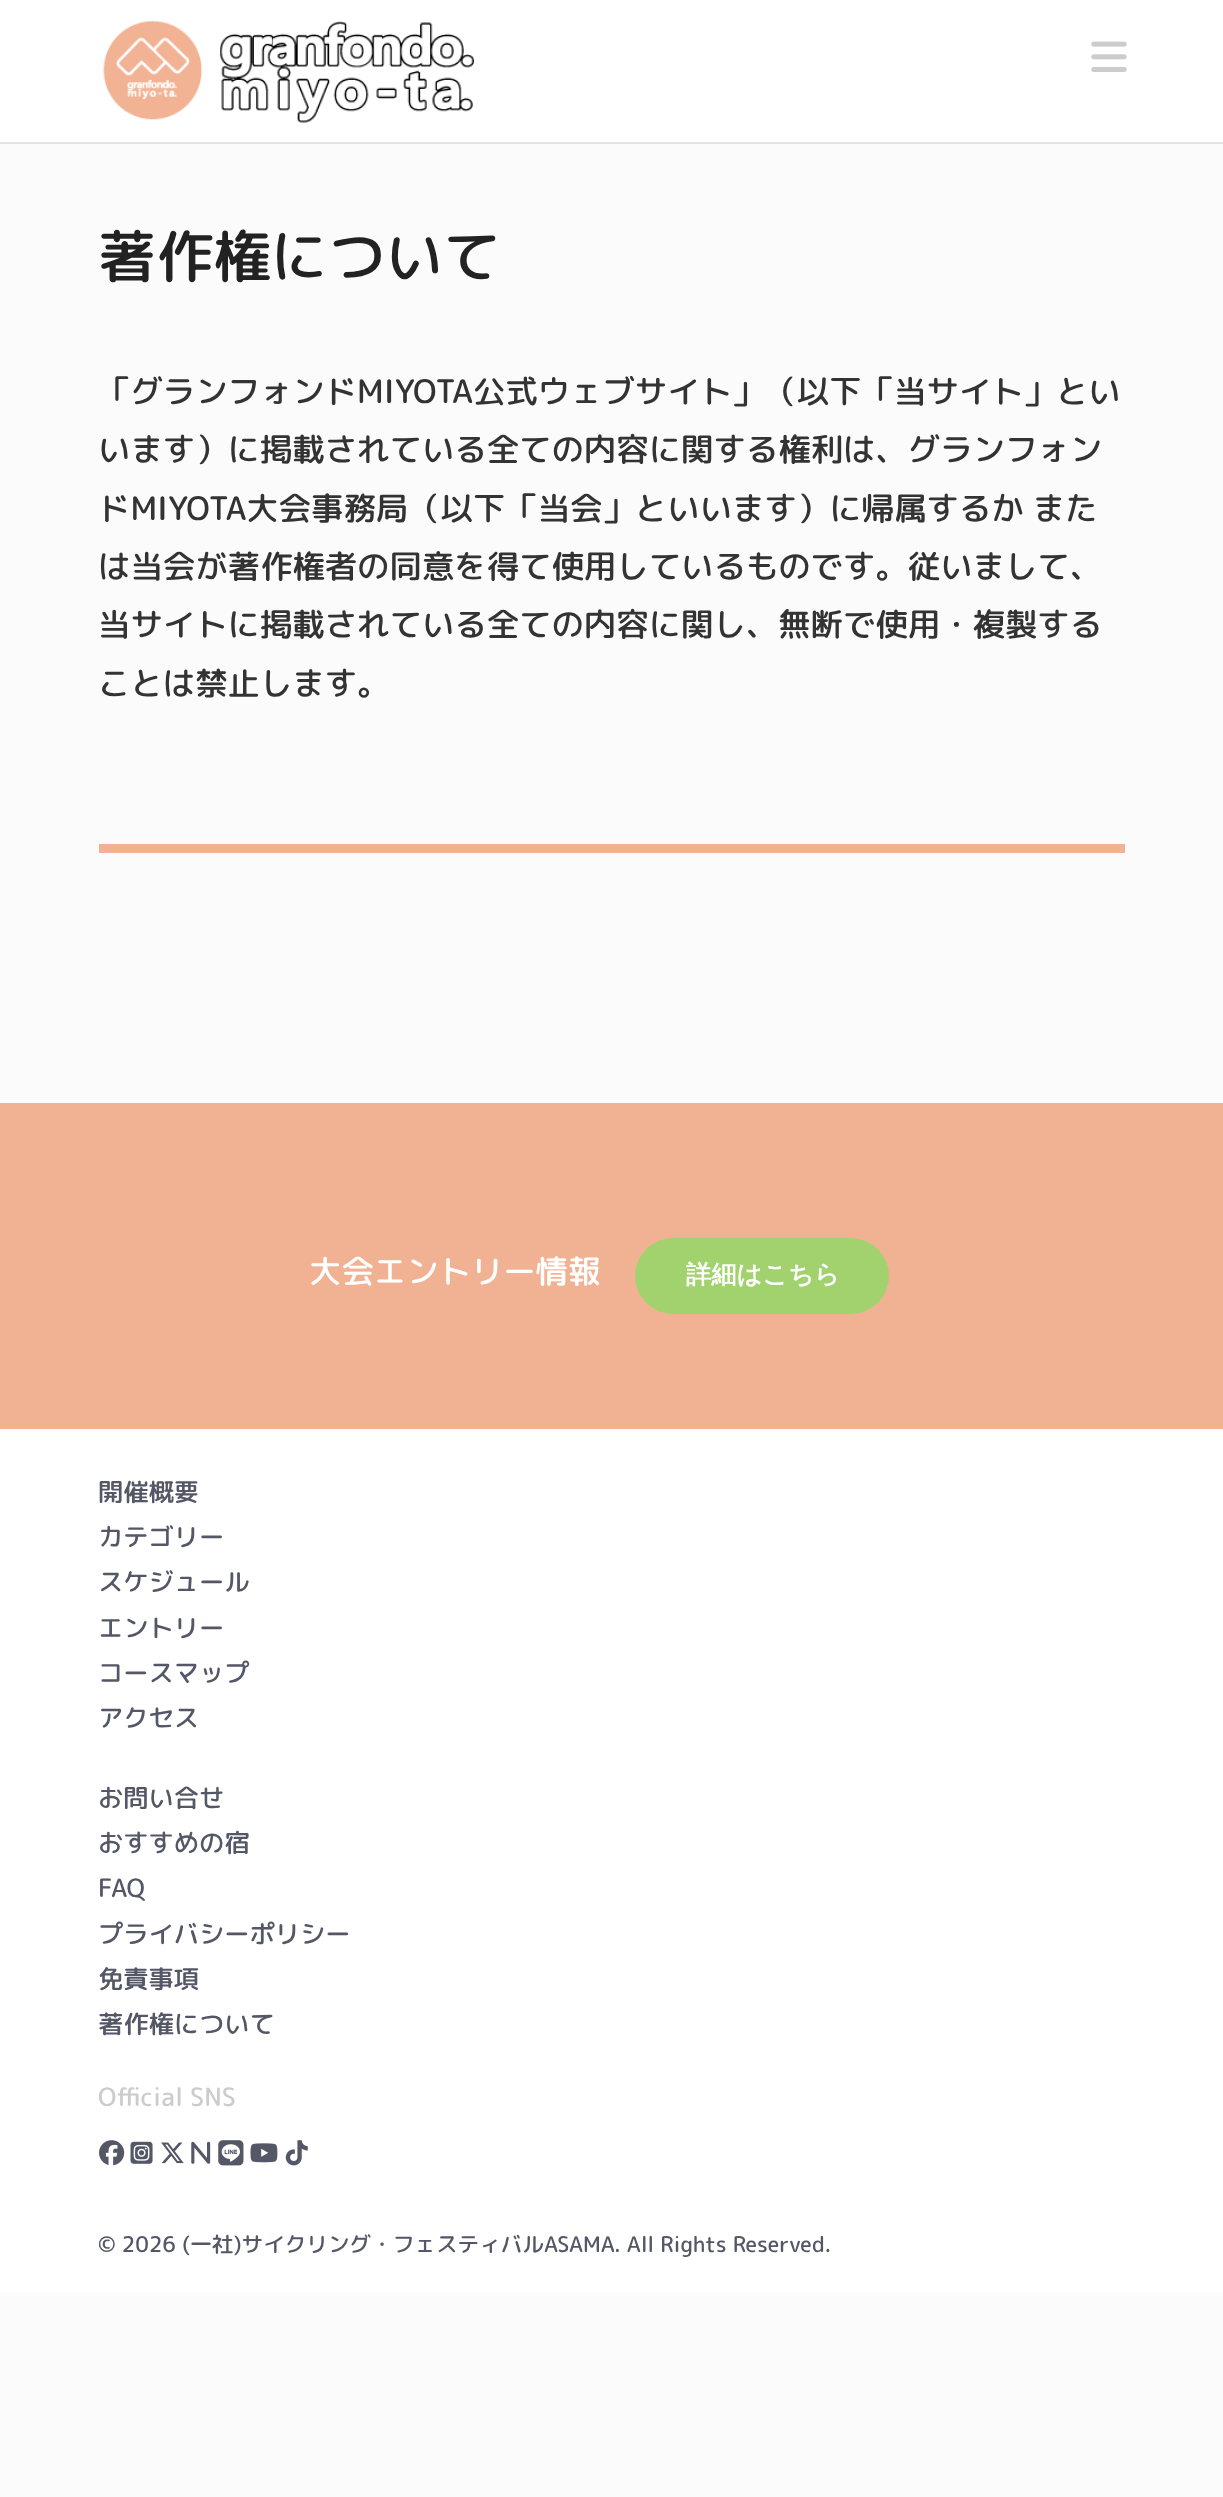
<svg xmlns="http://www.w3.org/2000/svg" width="1223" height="2497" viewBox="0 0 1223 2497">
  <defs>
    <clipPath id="clip1"><path d="M99 1451h1026v761H99z"/></clipPath>
    <clipPath id="clip2"><path d="M99 2212h1026v81H99z"/></clipPath>
  </defs>
  <rect width="100%" height="100%" fill="#fbfbfb"/>
  <path d="M0 142h1223v2H0z" fill="#e2e2e2"/>
  <path d="M0 0h1223v142H0z" fill="#fff"/>
  <image x="103" y="20" width="371" height="103" href="img/1.png"/>
  <image x="1091" y="41" width="36" height="31" href="img/2.png"/>
  <path d="M99 844h1026v9H99z" fill="#f1b294"/>
  <path d="M0 1103h1223v326H0z" fill="#f1b294"/>
  <rect x="635" y="1238" width="254" height="76" rx="38" fill="#a1d26e"/>
  <path d="M0 1429h1223v864H0z" fill="#fff"/>
  <image x="99" y="2140" width="26" height="26" href="img/3.png"/>
  <image x="130" y="2141" width="23" height="23" href="img/4.png"/>
  <image x="161" y="2142" width="23" height="22" href="img/5.png"/>
  <image x="191" y="2141" width="20" height="23" href="img/6.png"/>
  <image x="218" y="2140" width="26" height="26" href="img/7.png"/>
  <image x="250" y="2143" width="28" height="20" href="img/8.png"/>
  <image x="285" y="2140" width="23" height="26" href="img/9.png"/>
  <text x="98" y="277" font-family="'Rounded Mplus 1c'" font-size="57.5" font-weight="500" fill="#222">著作権について</text>
  <g font-family="'Rounded Mplus 1c'" font-size="32.4" font-weight="500" fill="#333">
    <text x="98" y="403">「グランフォンドMIYOTA公式ウェブサイト」（以下「当サイト」とい</text>
    <text x="98" y="461">います）に掲載されている全ての内容に関する権利は、グランフォン</text>
    <text x="98" y="520">ドMIYOTA大会事務局（以下「当会」といいます）に帰属するか また</text>
    <text x="98" y="578">は当会が著作権者の同意を得て使用しているものです。従いまして、</text>
    <text x="98" y="636">当サイトに掲載されている全ての内容に関し、無断で使用・複製する</text>
    <text x="98" y="695">ことは禁止します。</text>
  </g>
  <text x="309" y="1283" font-family="'Rounded Mplus 1c'" font-size="32.4" font-weight="500" fill="#fff">大会エントリー情報</text>
  <text x="686" y="1283" font-family="WenQuanYi Zen Hei" font-size="25.25" font-weight="bold" fill="#fff">詳細はこちら</text>
  <g font-family="'Rounded Mplus 1c'" font-size="25.25" font-weight="500" fill="#545766">
    <text x="98" y="1501">開催概要</text>
    <text x="98" y="1546">カテゴリー</text>
    <text x="98" y="1591">スケジュール</text>
    <text x="98" y="1637">エントリー</text>
    <text x="98" y="1682">コースマップ</text>
    <text x="98" y="1727">アクセス</text>
    <text x="98" y="1807">お問い合せ</text>
    <text x="98" y="1852">おすすめの宿</text>
    <text x="98" y="1897">FAQ</text>
    <text x="98" y="1943">プライバシーポリシー</text>
    <text x="98" y="1988">免責事項</text>
    <text x="98" y="2033">著作権について</text>
  </g>
  <g clip-path="url(#clip1)">
    <text x="98" y="2106" font-family="'Rounded Mplus 1c'" font-size="25.25" font-weight="500" fill="#ccc">Official SNS</text>
  </g>
  <g clip-path="url(#clip2)">
    <text x="98" y="2252" font-family="'Rounded Mplus 1c'" font-size="21.6" font-weight="500" fill="#545766">© 2026</text>
  </g>
  <g font-family="'Rounded Mplus 1c'" font-size="21.6" font-weight="500" fill="#545766">
    <text x="182" y="2252">(一社)サイクリング・フェスティバルASAMA</text>
    <text x="614" y="2252">. All Rights Reserved.</text>
  </g>
</svg>
